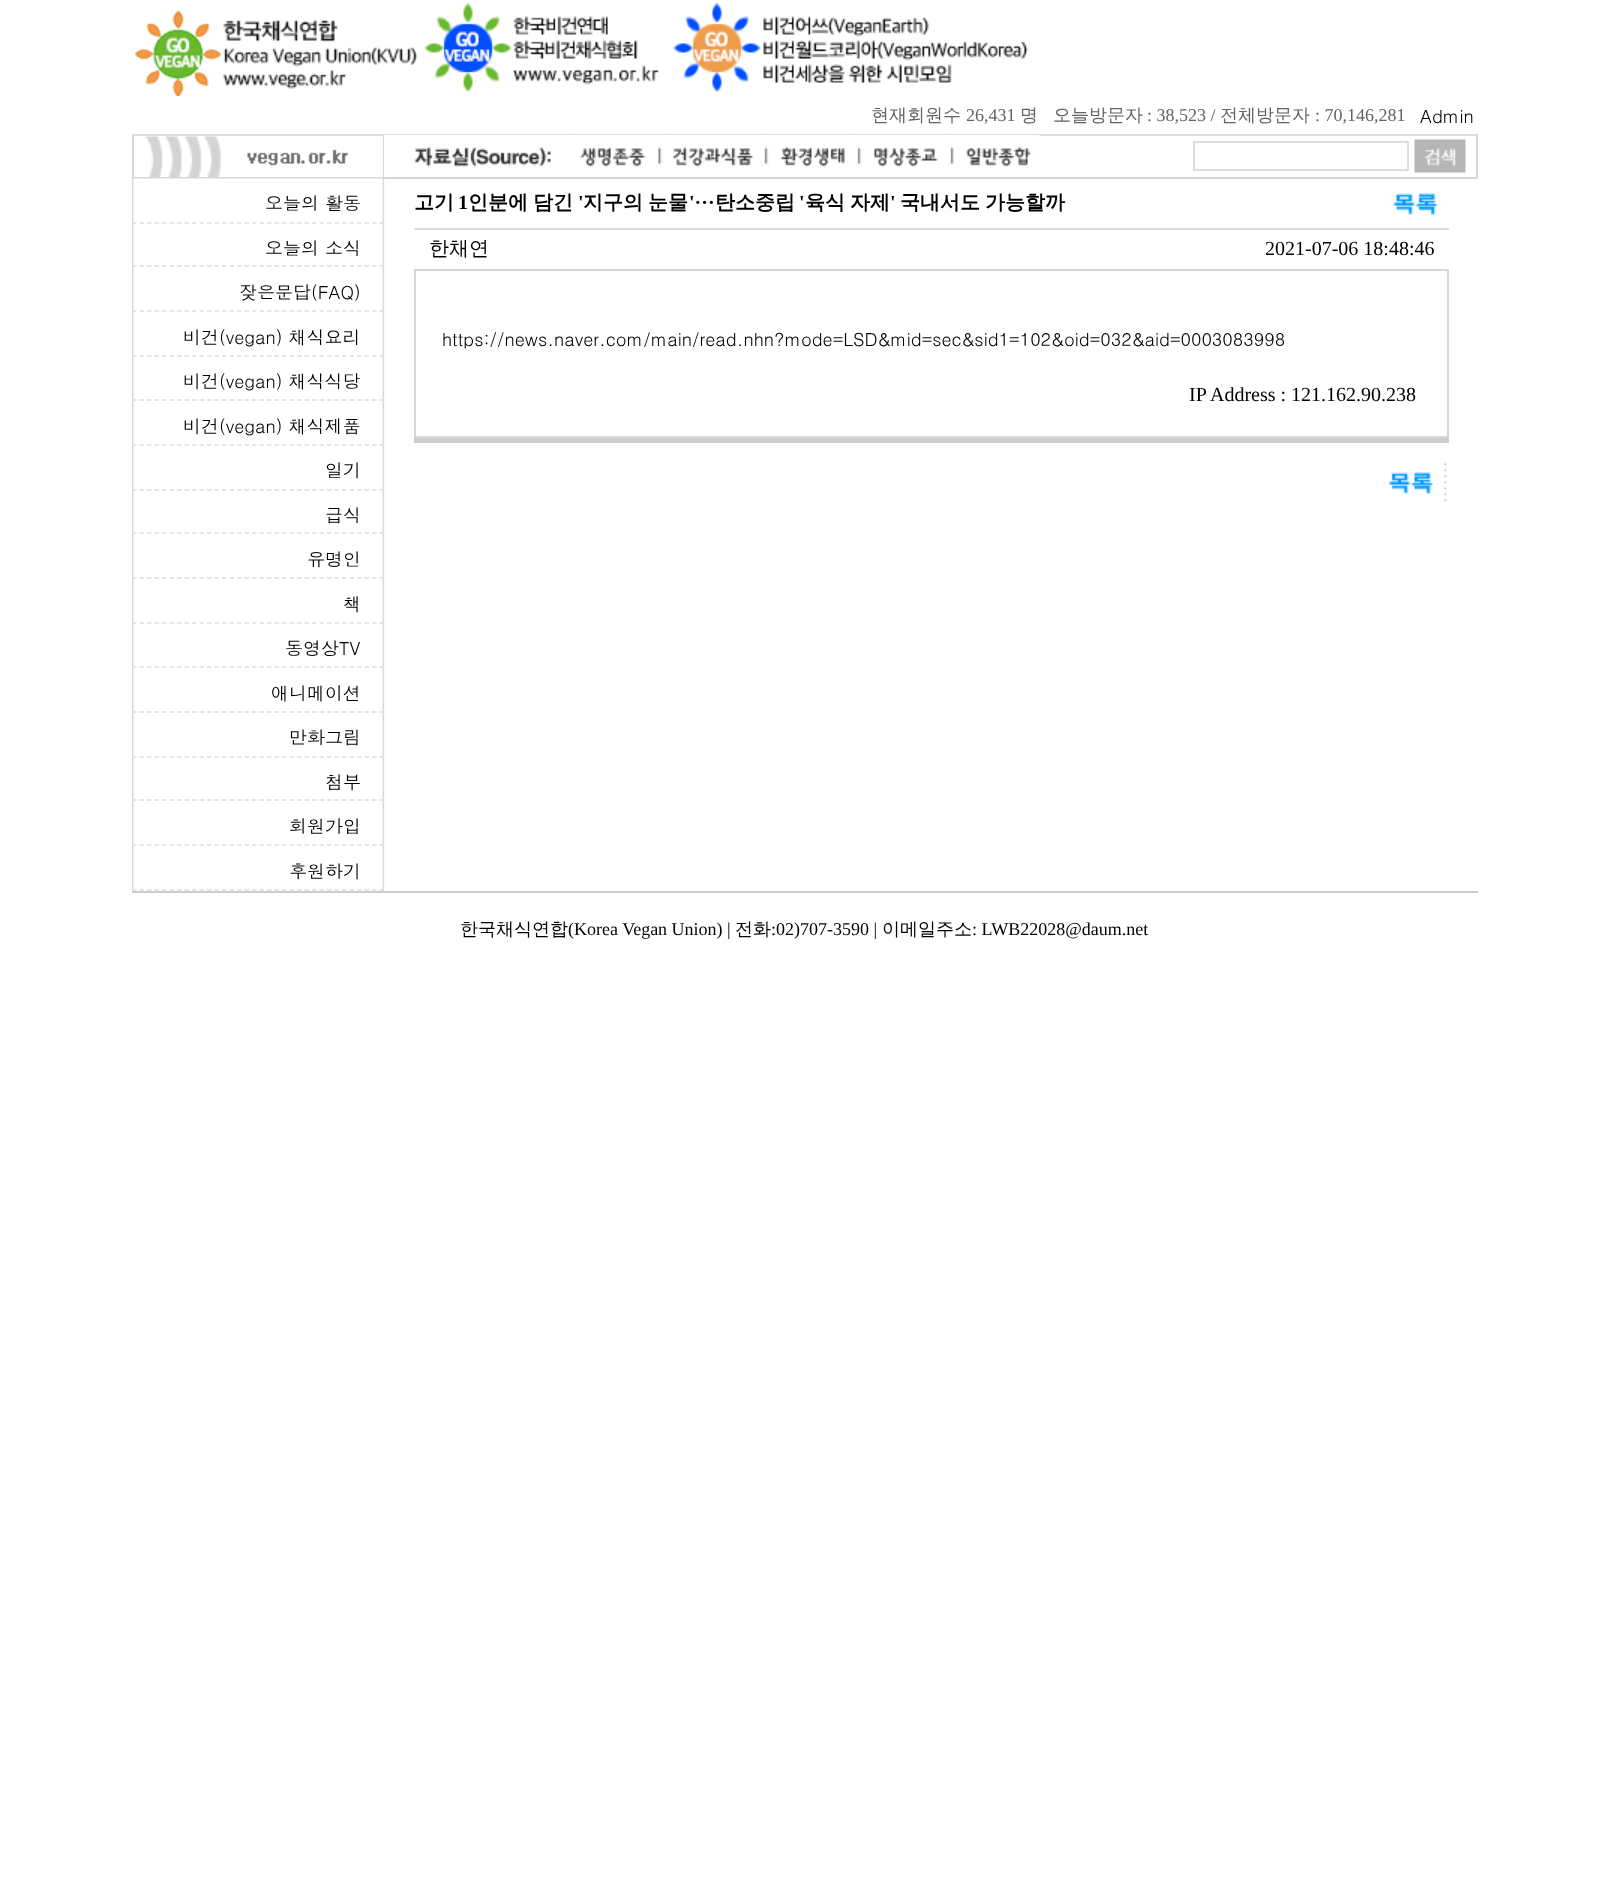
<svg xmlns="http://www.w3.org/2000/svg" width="1608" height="1897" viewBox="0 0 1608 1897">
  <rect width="100%" height="100%" fill="#fff"/>
  <path d="M132 134h1346v2H132z" fill="#dedede"/>
  <image x="135" y="10" width="283" height="86" href="img/1.png"/>
  <image x="424" y="2" width="235" height="90" href="img/2.png"/>
  <image x="673" y="2" width="355" height="90" href="img/3.png"/>
  <path d="M383 135h1v44H383z" fill="#d7d7d7"/>
  <path d="M132 177h1058v2H132z" fill="#d7d7d7"/>
  <path d="M132 135h2v44H132z" fill="#d7d7d7"/>
  <image x="145" y="136" width="204" height="41" href="img/4.png"/>
  <image x="384" y="135" width="188" height="42" href="img/5.png"/>
  <image x="571" y="135" width="83" height="32" href="img/6.png"/>
  <image x="654" y="135" width="11" height="34" href="img/7.png"/>
  <image x="664" y="135" width="97" height="32" href="img/8.png"/>
  <image x="760" y="135" width="11" height="31" href="img/9.png"/>
  <image x="771" y="135" width="83" height="32" href="img/10.png"/>
  <image x="853" y="135" width="11" height="31" href="img/9.png"/>
  <image x="864" y="135" width="83" height="32" href="img/11.png"/>
  <image x="946" y="135" width="11" height="31" href="img/9.png"/>
  <image x="957" y="135" width="83" height="32" href="img/12.png"/>
  <path d="M1476 135h2v44H1476z" fill="#d7d7d7"/>
  <path d="M1190 177h288v2H1190z" fill="#d7d7d7"/>
  <path d="M1194 142h214v28H1194z" fill="none" stroke="#dedede" stroke-width="2"/>
  <image x="1414" y="139" width="52" height="34" href="img/13.png"/>
  <image x="132" y="178" width="253" height="713" href="img/14.png"/>
  <path d="M132 223H384" fill="none" stroke="#ddd" stroke-width="1.5" stroke-dasharray="4.5 3"/>
  <path d="M132 266H384" fill="none" stroke="#ddd" stroke-width="1.5" stroke-dasharray="4.5 3"/>
  <path d="M132 311H384" fill="none" stroke="#ddd" stroke-width="1.5" stroke-dasharray="4.5 3"/>
  <path d="M132 356H384" fill="none" stroke="#ddd" stroke-width="1.5" stroke-dasharray="4.5 3"/>
  <path d="M132 400H384" fill="none" stroke="#ddd" stroke-width="1.5" stroke-dasharray="4.5 3"/>
  <path d="M132 445H384" fill="none" stroke="#ddd" stroke-width="1.5" stroke-dasharray="4.5 3"/>
  <path d="M132 490H384" fill="none" stroke="#ddd" stroke-width="1.5" stroke-dasharray="4.5 3"/>
  <path d="M132 533H384" fill="none" stroke="#ddd" stroke-width="1.5" stroke-dasharray="4.5 3"/>
  <path d="M132 578H384" fill="none" stroke="#ddd" stroke-width="1.5" stroke-dasharray="4.5 3"/>
  <path d="M132 623H384" fill="none" stroke="#ddd" stroke-width="1.5" stroke-dasharray="4.5 3"/>
  <path d="M132 667H384" fill="none" stroke="#ddd" stroke-width="1.5" stroke-dasharray="4.5 3"/>
  <path d="M132 712H384" fill="none" stroke="#ddd" stroke-width="1.5" stroke-dasharray="4.5 3"/>
  <path d="M132 757H384" fill="none" stroke="#ddd" stroke-width="1.5" stroke-dasharray="4.5 3"/>
  <path d="M132 800H384" fill="none" stroke="#ddd" stroke-width="1.5" stroke-dasharray="4.5 3"/>
  <path d="M132 845H384" fill="none" stroke="#ddd" stroke-width="1.5" stroke-dasharray="4.5 3"/>
  <path d="M132 890H384" fill="none" stroke="#ddd" stroke-width="1.5" stroke-dasharray="4.5 3"/>
  <image x="1393" y="193" width="45" height="22" href="img/15.png"/>
  <path d="M414 228h1035v2H414z" fill="#dedede"/>
  <path d="M415 270h1033v167H415z" fill="none" stroke="#d7d7d7" stroke-width="2"/>
  <path d="M414 438h1035v5H414z" fill="#ccc"/>
  <image x="1388" y="463" width="59" height="39" href="img/16.png"/>
  <path d="M132 891h1346v2H132z" fill="#ccc"/>
  <text x="871" y="121" font-family="WenQuanYi Zen Hei" font-size="18" font-weight="500" fill="#636363">현재회원수</text>
  <text x="966" y="121" font-family="Liberation Serif" font-size="18" fill="#636363">26,431</text>
  <g font-family="WenQuanYi Zen Hei" font-size="18" font-weight="500" fill="#636363">
    <text x="1020" y="121">명</text>
    <text x="1053" y="121">오늘방문자</text>
  </g>
  <text x="1147" y="121" font-family="Liberation Serif" font-size="18" fill="#636363">: 38,523 /</text>
  <text x="1220" y="121" font-family="WenQuanYi Zen Hei" font-size="18" font-weight="500" fill="#636363">전체방문자</text>
  <text x="1315" y="121" font-family="Liberation Serif" font-size="18" fill="#636363">: 70,146,281</text>
  <g font-family="Dotum" font-size="18" fill="#000">
    <text x="1420" y="123">Admin</text>
    <text x="265" y="210">오늘의 활동</text>
    <text x="265" y="255">오늘의 소식</text>
    <text x="239" y="299">잦은문답(FAQ)</text>
    <text x="183" y="344">비건(vegan) 채식요리</text>
    <text x="183" y="388">비건(vegan) 채식식당</text>
    <text x="183" y="433">비건(vegan) 채식제품</text>
    <text x="325" y="477">일기</text>
    <text x="325" y="522">급식</text>
    <text x="307" y="566">유명인</text>
    <text x="343" y="611">책</text>
    <text x="285" y="655">동영상TV</text>
    <text x="271" y="700">애니메이션</text>
    <text x="289" y="744">만화그림</text>
    <text x="325" y="789">첨부</text>
    <text x="289" y="833">회원가입</text>
    <text x="289" y="878">후원하기</text>
  </g>
  <text x="414" y="209" font-family="WenQuanYi Zen Hei" font-size="20" font-weight="bold" fill="#000">고기</text>
  <text x="458" y="209" font-family="Liberation Serif" font-size="20" font-weight="bold" fill="#000">1</text>
  <text x="468" y="209" word-spacing="-1" font-family="WenQuanYi Zen Hei" font-size="20" font-weight="bold" fill="#000">인분에 담긴</text>
  <text x="578" y="209" font-family="Liberation Serif" font-size="20" font-weight="bold" fill="#000">'</text>
  <text x="583" y="209" word-spacing="-1" font-family="WenQuanYi Zen Hei" font-size="20" font-weight="bold" fill="#000">지구의 눈물</text>
  <text x="689" y="209" font-family="Liberation Serif" font-size="20" font-weight="bold" fill="#000">'···</text>
  <text x="715" y="209" font-family="WenQuanYi Zen Hei" font-size="20" font-weight="bold" fill="#000">탄소중립</text>
  <text x="799" y="209" font-family="Liberation Serif" font-size="20" font-weight="bold" fill="#000">'</text>
  <text x="805" y="209" word-spacing="-1" font-family="WenQuanYi Zen Hei" font-size="20" font-weight="bold" fill="#000">육식 자제</text>
  <text x="890" y="209" font-family="Liberation Serif" font-size="20" font-weight="bold" fill="#000">'</text>
  <text x="900" y="209" word-spacing="-1" font-family="WenQuanYi Zen Hei" font-size="20" font-weight="bold" fill="#000">국내서도 가능할까</text>
  <text x="429" y="255" font-family="WenQuanYi Zen Hei" font-size="20" font-weight="500" fill="#000">한채연</text>
  <text x="1265" y="255" font-family="Liberation Serif" font-size="20" fill="#000">2021-07-06 18:48:46</text>
  <text x="442" y="346" font-family="Dotum" font-size="18" fill="#000">https://news.naver.com/main/read.nhn?mode=LSD&amp;mid=sec&amp;sid1=102&amp;oid=032&amp;aid=0003083998</text>
  <text x="1189" y="401" font-family="Liberation Serif" font-size="20" fill="#000">IP Address : 121.162.90.238</text>
  <text x="460" y="935" font-family="WenQuanYi Zen Hei" font-size="18" font-weight="500" fill="#000">한국채식연합</text>
  <text x="568" y="935" font-family="Liberation Serif" font-size="18" fill="#000">(Korea Vegan Union) |</text>
  <text x="735" y="935" font-family="WenQuanYi Zen Hei" font-size="18" font-weight="500" fill="#000">전화</text>
  <text x="771" y="935" font-family="Liberation Serif" font-size="18" fill="#000">:02)707-3590 |</text>
  <text x="882" y="935" font-family="WenQuanYi Zen Hei" font-size="18" font-weight="500" fill="#000">이메일주소</text>
  <text x="972" y="935" font-family="Liberation Serif" font-size="18" fill="#000">: LWB22028@daum.net</text>
</svg>
